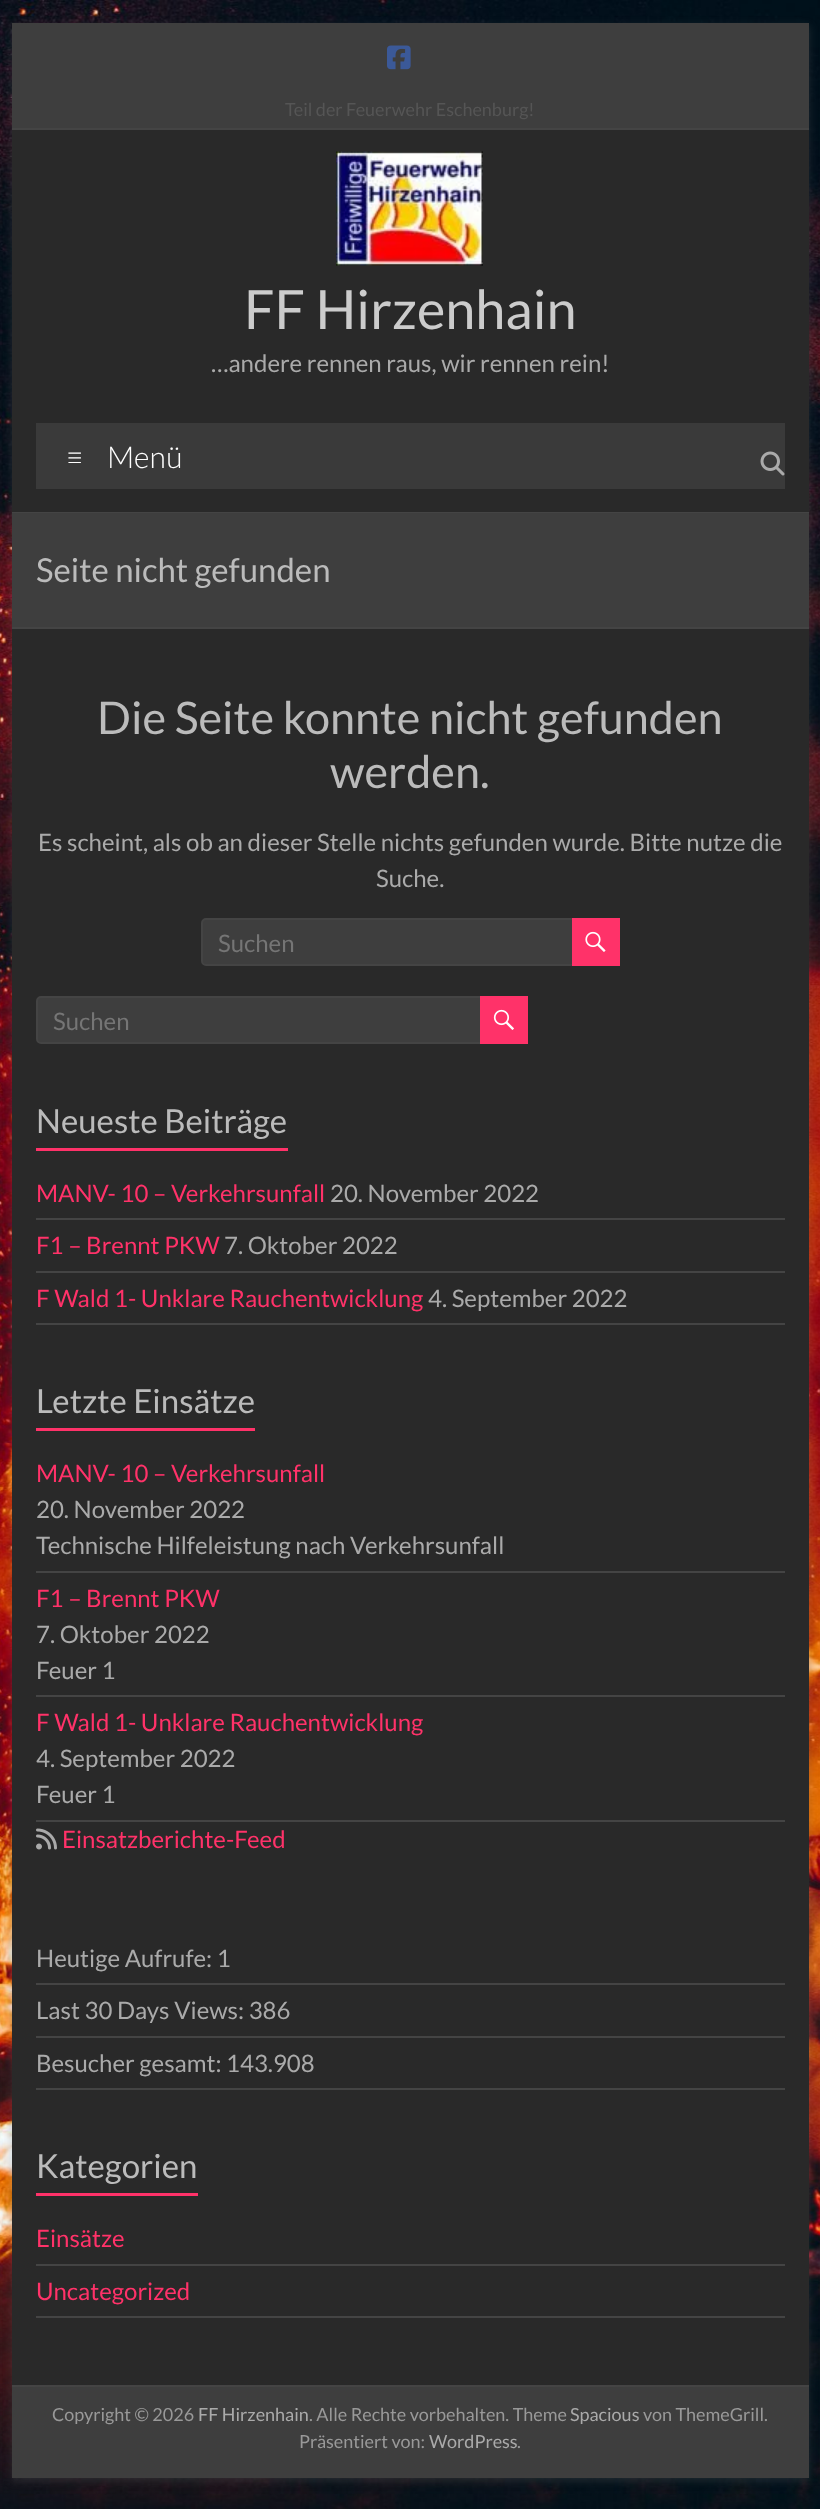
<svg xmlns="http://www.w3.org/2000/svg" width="820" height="2509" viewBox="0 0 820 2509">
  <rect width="100%" height="100%" fill="#fff"/>
  <image x="0" y="0" width="820" height="2509" href="img/1.png"/>
  <path d="M12 26h797v2455H12z" fill="#6464644d" filter="blur(4.5px)"/>
  <path d="M12 130h797v2255H12z" fill="#292929"/>
  <path d="M12 23h797v105H12z" fill="#3e3e3e"/>
  <path d="M12 128h797v2H12z" fill="#444"/>
  <image x="387" y="45" width="24" height="25" href="img/2.png"/>
  <path d="M12 512h797v1H12z" fill="#444"/>
  <image x="336" y="151" width="147" height="115" href="img/3.png"/>
  <path d="M36 423h749v66H36z" fill="#3a3a3a"/>
  <image x="760" y="451" width="25" height="25" href="img/4.png"/>
  <path d="M12 513h797v114H12z" fill="#3e3e3e"/>
  <path d="M12 627h797v2H12z" fill="#444"/>
  <rect x="202" y="919" width="373" height="46" rx="4" fill="#3e3e3e" stroke="#444" stroke-width="2"/>
  <path d="M572 918h48v48H572z" fill="#ff3269"/>
  <image x="585" y="931" width="21" height="21" href="img/5.png"/>
  <rect x="37" y="997" width="447" height="46" rx="4" fill="#3e3e3e" stroke="#444" stroke-width="2"/>
  <path d="M480 996h48v48H480z" fill="#ff3269"/>
  <image x="493" y="1009" width="21" height="21" href="img/6.png"/>
  <path d="M36 1148h252v3H36z" fill="#ff3269"/>
  <path d="M36 1218h749v2H36z" fill="#444"/>
  <path d="M36 1271h749v2H36z" fill="#444"/>
  <path d="M36 1323h749v2H36z" fill="#444"/>
  <path d="M36 1428h219v3H36z" fill="#ff3269"/>
  <path d="M36 1571h749v2H36z" fill="#444"/>
  <path d="M36 1695h749v2H36z" fill="#444"/>
  <path d="M36 1820h749v2H36z" fill="#444"/>
  <image x="36" y="1828" width="21" height="22" href="img/7.png"/>
  <path d="M36 1983h749v2H36z" fill="#444"/>
  <path d="M36 2036h749v2H36z" fill="#444"/>
  <path d="M36 2088h749v2H36z" fill="#444"/>
  <path d="M36 2193h162v3H36z" fill="#ff3269"/>
  <path d="M36 2264h749v2H36z" fill="#444"/>
  <path d="M36 2316h749v2H36z" fill="#444"/>
  <path d="M12 2387h797v91H12z" fill="#3e3e3e"/>
  <path d="M12 2385h797v2H12z" fill="#444"/>
  <text x="285" y="116" font-family="Lato" font-size="18" fill="#555">Teil der Feuerwehr Eschenburg!</text>
  <text x="244" y="329" font-family="Lato" font-size="54" fill="#ccc">FF Hirzenhain</text>
  <text x="211" y="372" font-family="Lato" font-size="24" fill="#aaa">…andere rennen raus, wir rennen rein!</text>
  <g font-family="Lato" font-size="30" font-weight="300" fill="#fff">
    <text x="66" y="468">≡</text>
    <text x="107" y="468">Menü</text>
  </g>
  <text x="36" y="582" font-family="Lato" font-size="33" fill="#bbb">Seite nicht gefunden</text>
  <g font-family="Lato" font-size="45" fill="#bbb">
    <text x="97" y="734">Die Seite konnte nicht gefunden</text>
    <text x="330" y="788">werden.</text>
  </g>
  <g font-family="Lato" font-size="24" fill="#aaa">
    <text x="38" y="851">Es scheint, als ob an dieser Stelle nichts gefunden wurde. Bitte nutze die</text>
    <text x="376" y="887">Suche.</text>
  </g>
  <g font-family="Lato" font-size="24" fill="#757575">
    <text x="218" y="952">Suchen</text>
    <text x="53" y="1030">Suchen</text>
  </g>
  <text x="36" y="1133" font-family="Lato" font-size="33" fill="#bbb">Neueste Beiträge</text>
  <text x="36" y="1202" font-family="Lato" font-size="24" fill="#ff3269">MANV- 10 – Verkehrsunfall</text>
  <text x="330" y="1202" font-family="Lato" font-size="24" fill="#aaa">20. November 2022</text>
  <text x="36" y="1254" font-family="Lato" font-size="24" fill="#ff3269">F1 – Brennt PKW</text>
  <text x="224" y="1254" font-family="Lato" font-size="24" fill="#aaa">7. Oktober 2022</text>
  <text x="36" y="1307" font-family="Lato" font-size="24" fill="#ff3269">F Wald 1- Unklare Rauchentwicklung</text>
  <text x="428" y="1307" font-family="Lato" font-size="24" fill="#aaa">4. September 2022</text>
  <text x="36" y="1413" font-family="Lato" font-size="33" fill="#bbb">Letzte Einsätze</text>
  <text x="36" y="1482" font-family="Lato" font-size="24" fill="#ff3269">MANV- 10 – Verkehrsunfall</text>
  <g font-family="Lato" font-size="24" fill="#aaa">
    <text x="36" y="1518">20. November 2022</text>
    <text x="36" y="1554">Technische Hilfeleistung nach Verkehrsunfall</text>
  </g>
  <text x="36" y="1607" font-family="Lato" font-size="24" fill="#ff3269">F1 – Brennt PKW</text>
  <g font-family="Lato" font-size="24" fill="#aaa">
    <text x="36" y="1643">7. Oktober 2022</text>
    <text x="36" y="1679">Feuer 1</text>
  </g>
  <text x="36" y="1731" font-family="Lato" font-size="24" fill="#ff3269">F Wald 1- Unklare Rauchentwicklung</text>
  <g font-family="Lato" font-size="24" fill="#aaa">
    <text x="36" y="1767">4. September 2022</text>
    <text x="36" y="1803">Feuer 1</text>
  </g>
  <text x="62" y="1848" font-family="Lato" font-size="24" fill="#ff3269">Einsatzberichte-Feed</text>
  <g font-family="Lato" font-size="24" fill="#aaa">
    <text x="36" y="1967">Heutige Aufrufe: 1</text>
    <text x="36" y="2019">Last 30 Days Views: 386</text>
    <text x="36" y="2072">Besucher gesamt: 143.908</text>
  </g>
  <text x="36" y="2178" font-family="Lato" font-size="33" fill="#bbb">Kategorien</text>
  <g font-family="Lato" font-size="24" fill="#ff3269">
    <text x="36" y="2247">Einsätze</text>
    <text x="36" y="2300">Uncategorized</text>
  </g>
  <text x="52" y="2421" font-family="Lato" font-size="18" fill="#999">Copyright © 2026</text>
  <text x="198" y="2421" font-family="Lato" font-size="18" fill="#aaa">FF Hirzenhain</text>
  <text x="309" y="2421" font-family="Lato" font-size="18" fill="#999">. Alle Rechte vorbehalten. Theme</text>
  <text x="570" y="2421" font-family="Lato" font-size="18" fill="#aaa">Spacious</text>
  <g font-family="Lato" font-size="18" fill="#999">
    <text x="643" y="2421">von ThemeGrill.</text>
    <text x="299" y="2448">Präsentiert von:</text>
  </g>
  <text x="429" y="2448" font-family="Lato" font-size="18" fill="#aaa">WordPress</text>
  <text x="517" y="2448" font-family="Lato" font-size="18" fill="#999">.</text>
</svg>
